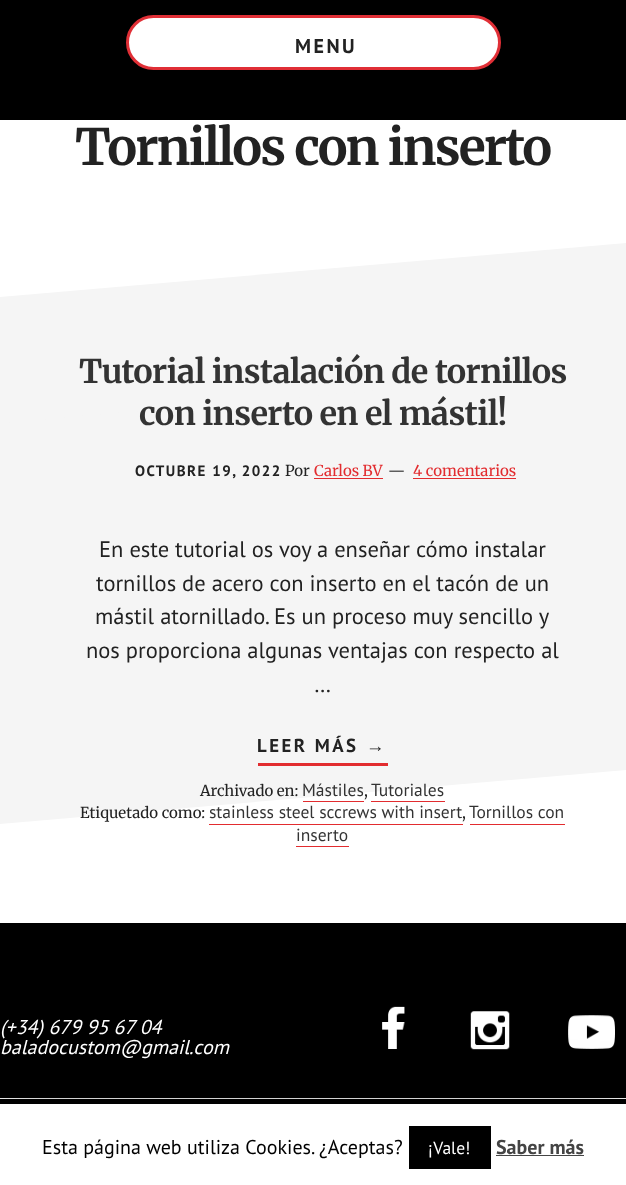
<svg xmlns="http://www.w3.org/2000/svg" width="626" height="1185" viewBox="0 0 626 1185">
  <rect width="100%" height="100%" fill="#fff"/>
  <path d="M0 0h626v120H0z" fill="#000"/>
  <rect x="127.5" y="16.5" width="372" height="52" rx="26" fill="#fff" stroke="#e02f36" stroke-width="3"/>
  <path d="M0 297L626 243V644L0 698Z" fill="#f5f5f5"/>
  <path d="M0 423L626 369V770L0 824Z" fill="#f5f5f5"/>
  <path d="M314 478h69v1H314z" fill="#e22c2f"/>
  <path d="M413 478h103v1H413z" fill="#e22c2f"/>
  <path d="M258 763h130v3H258z" fill="#e22c2f"/>
  <path d="M303 801h61v1H303z" fill="#e22c2f"/>
  <path d="M371 801h74v1H371z" fill="#e22c2f"/>
  <path d="M209 824h254v1H209z" fill="#e22c2f"/>
  <path d="M470 824h95v1H470z" fill="#e22c2f"/>
  <path d="M296 846h53v1H296z" fill="#e22c2f"/>
  <path d="M0 923h626v181H0z" fill="#000"/>
  <image x="382" y="1006" width="23" height="43" href="img/1.png"/>
  <image x="470" y="1011" width="40" height="39" href="img/2.png"/>
  <image x="568" y="1015" width="47" height="34" href="img/3.png"/>
  <path d="M0 1098h626v1H0z" fill="#fff"/>
  <path d="M0 1110h626v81H0z" fill="#00000080" filter="blur(31px)"/>
  <path d="M0 1104h626v81H0z" fill="#fff"/>
  <path d="M409 1126h82v43H409z" fill="#000"/>
  <path d="M496 1155h88v1H496z" fill="#444"/>
  <text x="295" y="53" font-family="PT Sans" font-size="20" font-weight="bold" letter-spacing="2.5" fill="#222">MENU</text>
  <text x="75" y="165" font-family="Merriweather" font-size="50" font-weight="bold" letter-spacing="-1.9" fill="#222">Tornillos con inserto</text>
  <g font-family="Merriweather" font-size="32.5" font-weight="bold" letter-spacing="-0.6" fill="#333">
    <text x="79" y="383">Tutorial instalación de tornillos</text>
    <text x="139" y="425">con inserto en el mástil!</text>
  </g>
  <text x="135" y="476" font-family="PT Sans" font-size="15" font-weight="bold" letter-spacing="1.5" fill="#222">OCTUBRE 19, 2022</text>
  <text x="285" y="476" font-family="Merriweather" font-size="15" fill="#222">Por</text>
  <text x="314" y="476" font-family="Merriweather" font-size="15" fill="#e22c2f">Carlos BV</text>
  <text x="388" y="476" font-family="Merriweather" font-size="15" fill="#222">—</text>
  <text x="413" y="476" font-family="Merriweather" font-size="15" fill="#e22c2f">4 comentarios</text>
  <g font-family="PT Sans" font-size="22.5" fill="#222">
    <text x="99" y="557">En este tutorial os voy a enseñar cómo instalar</text>
    <text x="96" y="591">tornillos de acero con inserto en el tacón de un</text>
    <text x="95" y="624">mástil atornillado. Es un proceso muy sencillo y</text>
    <text x="86" y="658">nos proporciona algunas ventajas con respecto al</text>
    <text x="314" y="692">…</text>
  </g>
  <text x="257" y="752" font-family="PT Sans" font-size="18.75" font-weight="bold" letter-spacing="2.5" fill="#222">LEER MÁS</text>
  <text x="366" y="752" font-family="Liberation Sans" font-size="18.75" font-weight="bold" letter-spacing="2.5" fill="#222">→</text>
  <text x="200" y="796" font-family="Merriweather" font-size="15" fill="#222">Archivado en:</text>
  <text x="302" y="796" font-family="PT Sans" font-size="17.5" fill="#333">Mástiles</text>
  <text x="364" y="796" font-family="Merriweather" font-size="15" fill="#222">,</text>
  <text x="371" y="796" font-family="PT Sans" font-size="17.5" fill="#333">Tutoriales</text>
  <text x="80" y="818" font-family="Merriweather" font-size="15" fill="#222">Etiquetado como:</text>
  <text x="209" y="818" font-family="PT Sans" font-size="17.5" fill="#333">stainless steel sccrews with insert</text>
  <text x="462" y="818" font-family="Merriweather" font-size="15" fill="#222">,</text>
  <g font-family="PT Sans" font-size="17.5" fill="#333">
    <text x="469" y="818">Tornillos con</text>
    <text x="296" y="841">inserto</text>
  </g>
  <g font-family="PT Sans" font-size="20" font-style="italic" fill="#fff">
    <text x="0" y="1034">(+34) 679 95 67 04</text>
    <text x="0" y="1054">baladocustom@gmail.com</text>
  </g>
  <text x="42" y="1154" font-family="PT Sans" font-size="20" fill="#000">Esta página web utiliza Cookies. ¿Aceptas?</text>
  <text x="428" y="1154" font-family="PT Sans" font-size="17.5" fill="#fff">¡Vale!</text>
  <text x="496" y="1154" font-family="PT Sans" font-size="20" font-weight="bold" fill="#444">Saber más</text>
</svg>
